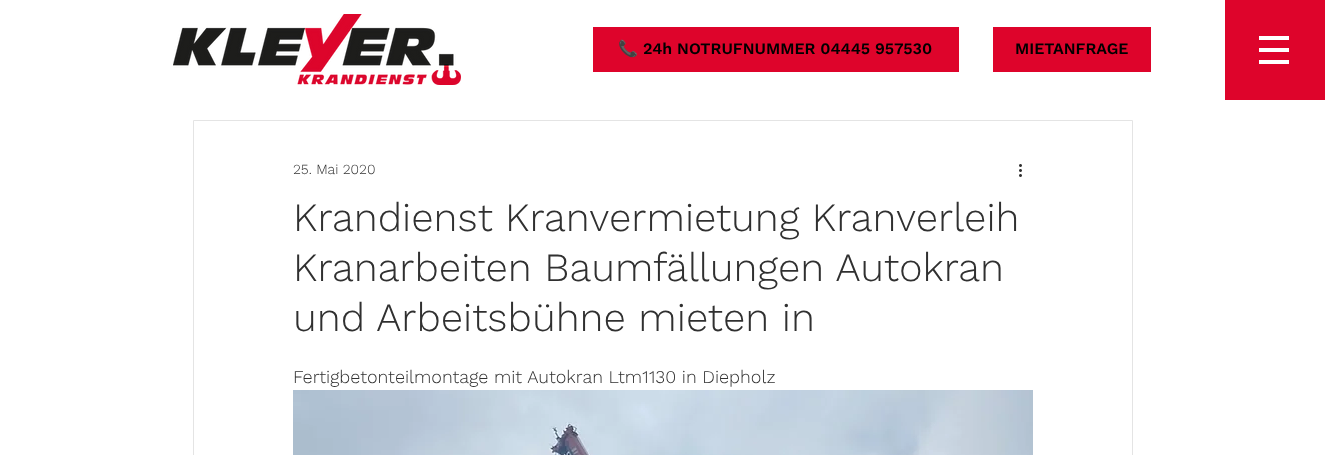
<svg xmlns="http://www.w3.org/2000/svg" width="1325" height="455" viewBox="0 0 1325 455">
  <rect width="100%" height="100%" fill="#fff"/>
  <image x="173" y="14" width="288" height="71" href="img/1.png"/>
  <path d="M593 27h366v45H593z" fill="#de042b"/>
  <path d="M993 27h158v45H993z" fill="#de042b"/>
  <path d="M1225 0V100H1325V0ZM1289 64H1259V60H1289ZM1289 52H1259V48H1289ZM1289 40H1259V36H1289Z" fill="#de042b"/>
  <path d="M193.5 120.5h939v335H193.5z" fill="none" stroke="#e4e4e4"/>
  <image x="1019" y="164" width="3" height="13" href="img/2.png"/>
  <image x="293" y="390" width="740" height="65" href="img/3.png"/>
  <text x="618" y="54" font-family="Noto Color Emoji" font-size="16" fill="#000">📞</text>
  <g font-family="Work Sans" font-size="16" font-weight="600" fill="#000">
    <text x="643" y="54">24h NOTRUFNUMMER 04445 957530</text>
    <text x="1015" y="54">MIETANFRAGE</text>
  </g>
  <text x="293" y="174" font-family="Work Sans" font-size="14" font-weight="300" fill="#303030">25. Mai 2020</text>
  <g font-family="Work Sans" font-size="40" font-weight="300" fill="#303030">
    <text x="293" y="231">Krandienst Kranvermietung Kranverleih</text>
    <text x="293" y="281">Kranarbeiten Baumfällungen Autokran</text>
    <text x="293" y="331">und Arbeitsbühne mieten in</text>
  </g>
  <text x="293" y="383" font-family="Work Sans" font-size="18" font-weight="300" fill="#303030">Fertigbetonteilmontage mit Autokran Ltm1130 in Diepholz</text>
</svg>
